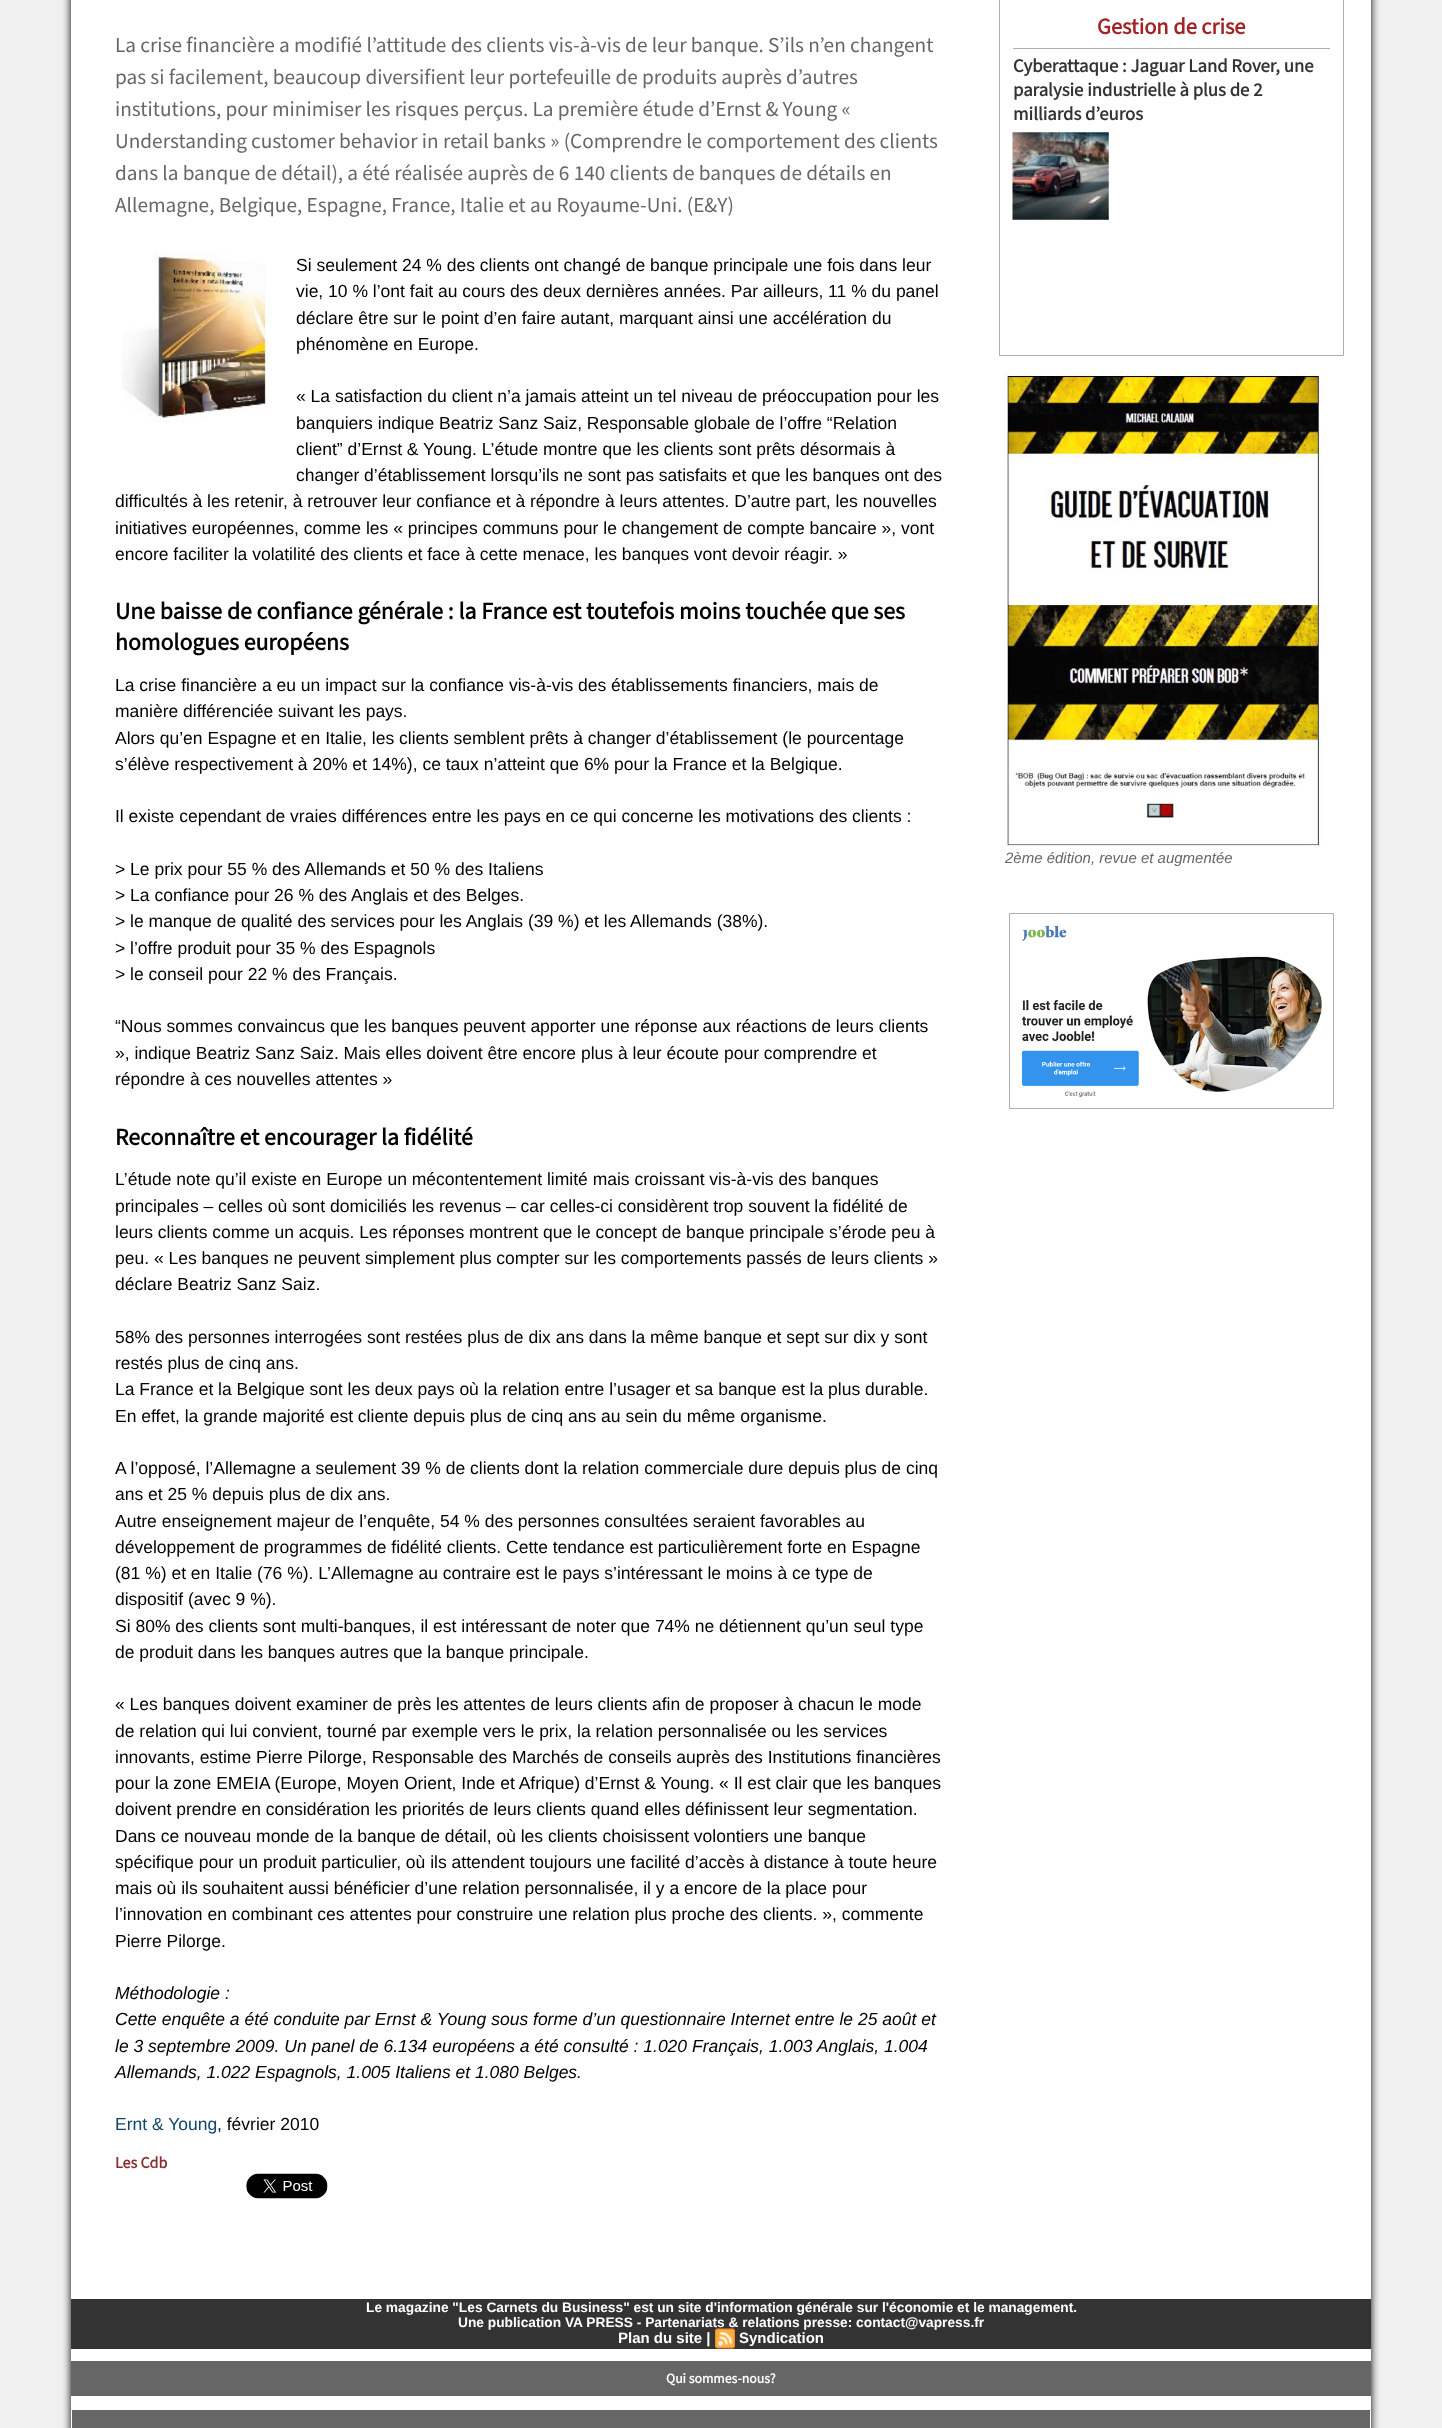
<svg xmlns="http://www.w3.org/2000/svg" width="1442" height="2428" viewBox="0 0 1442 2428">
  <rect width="100%" height="100%" fill="#f0f0f0"/>
  <path d="M71 -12h1300v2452H71z" fill="#000" filter="blur(4px)"/>
  <path d="M71 0h1300v2409H71z" fill="#fff"/>
  <image x="121" y="252" width="152" height="171" href="img/1.png"/>
  <image x="246" y="2173" width="82" height="26" href="img/2.png"/>
  <path d="M999.5 -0.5h344v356H999.5z" fill="none" stroke="#adadad"/>
  <path d="M1013 48h317v1H1013z" fill="#adadad"/>
  <image x="1012" y="132" width="97" height="88" href="img/3.png"/>
  <image x="1005" y="373" width="317" height="474" href="img/4.png"/>
  <path d="M1009.5 913.5h324v195H1009.5z" fill="none" stroke="#adadad"/>
  <image x="1021" y="925" width="301" height="173" href="img/5.png"/>
  <path d="M71 2299h1300v50H71z" fill="#333"/>
  <path d="M71 2361h1300v35H71z" fill="#666"/>
  <path d="M71.5 2409.5h1299v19H71.5z" fill="#666" stroke="#fff"/>
  <g font-family="Mada" font-size="21.25" fill="#666">
    <text x="115" y="52">La crise financière a modifié l’attitude des clients vis-à-vis de leur banque. S’ils n’en changent</text>
    <text x="115" y="84">pas si facilement, beaucoup diversifient leur portefeuille de produits auprès d’autres</text>
    <text x="115" y="116">institutions, pour minimiser les risques perçus. La première étude d’Ernst &amp; Young «</text>
    <text x="115" y="148">Understanding customer behavior in retail banks » (Comprendre le comportement des clients</text>
    <text x="115" y="180">dans la banque de détail), a été réalisée auprès de 6 140 clients de banques de détails en</text>
    <text x="115" y="212">Allemagne, Belgique, Espagne, France, Italie et au Royaume-Uni. (E&amp;Y)</text>
  </g>
  <g font-family="Liberation Sans" font-size="17.5" fill="#000">
    <text x="296" y="271">Si seulement 24 % des clients ont changé de banque principale une fois dans leur</text>
    <text x="296" y="297">vie, 10 % l’ont fait au cours des deux dernières années. Par ailleurs, 11 % du panel</text>
    <text x="296" y="324">déclare être sur le point d’en faire autant, marquant ainsi une accélération du</text>
    <text x="296" y="350">phénomène en Europe.</text>
    <text x="296" y="402">« La satisfaction du client n’a jamais atteint un tel niveau de préoccupation pour les</text>
    <text x="296" y="429">banquiers indique Beatriz Sanz Saiz, Responsable globale de l’offre “Relation</text>
    <text x="296" y="455">client” d’Ernst &amp; Young. L’étude montre que les clients sont prêts désormais à</text>
    <text x="296" y="481">changer d’établissement lorsqu’ils ne sont pas satisfaits et que les banques ont des</text>
    <text x="115" y="507">difficultés à les retenir, à retrouver leur confiance et à répondre à leurs attentes. D’autre part, les nouvelles</text>
    <text x="115" y="534">initiatives européennes, comme les « principes communs pour le changement de compte bancaire », vont</text>
    <text x="115" y="560">encore faciliter la volatilité des clients et face à cette menace, les banques vont devoir réagir. »</text>
  </g>
  <g font-family="Mada" font-size="23.75" font-weight="bold" fill="#000">
    <text x="115" y="619">Une baisse de confiance générale : la France est toutefois moins touchée que ses</text>
    <text x="115" y="650">homologues européens</text>
  </g>
  <g font-family="Liberation Sans" font-size="17.5" fill="#000">
    <text x="115" y="691">La crise financière a eu un impact sur la confiance vis-à-vis des établissements financiers, mais de</text>
    <text x="115" y="717">manière différenciée suivant les pays.</text>
    <text x="115" y="744">Alors qu’en Espagne et en Italie, les clients semblent prêts à changer d’établissement (le pourcentage</text>
    <text x="115" y="770">s’élève respectivement à 20% et 14%), ce taux n’atteint que 6% pour la France et la Belgique.</text>
    <text x="115" y="822">Il existe cependant de vraies différences entre les pays en ce qui concerne les motivations des clients :</text>
    <text x="115" y="875">&gt; Le prix pour 55 % des Allemands et 50 % des Italiens</text>
    <text x="115" y="901">&gt; La confiance pour 26 % des Anglais et des Belges.</text>
    <text x="115" y="927">&gt; le manque de qualité des services pour les Anglais (39 %) et les Allemands (38%).</text>
    <text x="115" y="954">&gt; l’offre produit pour 35 % des Espagnols</text>
    <text x="115" y="980">&gt; le conseil pour 22 % des Français.</text>
    <text x="115" y="1032">“Nous sommes convaincus que les banques peuvent apporter une réponse aux réactions de leurs clients</text>
    <text x="115" y="1059">», indique Beatriz Sanz Saiz. Mais elles doivent être encore plus à leur écoute pour comprendre et</text>
    <text x="115" y="1085">répondre à ces nouvelles attentes »</text>
  </g>
  <text x="115" y="1145" font-family="Mada" font-size="23.75" font-weight="bold" fill="#000">Reconnaître et encourager la fidélité</text>
  <g font-family="Liberation Sans" font-size="17.5" fill="#000">
    <text x="115" y="1185">L’étude note qu’il existe en Europe un mécontentement limité mais croissant vis-à-vis des banques</text>
    <text x="115" y="1212">principales – celles où sont domiciliés les revenus – car celles-ci considèrent trop souvent la fidélité de</text>
    <text x="115" y="1238">leurs clients comme un acquis. Les réponses montrent que le concept de banque principale s’érode peu à</text>
    <text x="115" y="1264">peu. « Les banques ne peuvent simplement plus compter sur les comportements passés de leurs clients »</text>
    <text x="115" y="1290">déclare Beatriz Sanz Saiz.</text>
    <text x="115" y="1343">58% des personnes interrogées sont restées plus de dix ans dans la même banque et sept sur dix y sont</text>
    <text x="115" y="1369">restés plus de cinq ans.</text>
    <text x="115" y="1395">La France et la Belgique sont les deux pays où la relation entre l’usager et sa banque est la plus durable.</text>
    <text x="115" y="1422">En effet, la grande majorité est cliente depuis plus de cinq ans au sein du même organisme.</text>
    <text x="115" y="1474">A l’opposé, l’Allemagne a seulement 39 % de clients dont la relation commerciale dure depuis plus de cinq</text>
    <text x="115" y="1500">ans et 25 % depuis plus de dix ans.</text>
    <text x="115" y="1527">Autre enseignement majeur de l’enquête, 54 % des personnes consultées seraient favorables au</text>
    <text x="115" y="1553">développement de programmes de fidélité clients. Cette tendance est particulièrement forte en Espagne</text>
    <text x="115" y="1579">(81 %) et en Italie (76 %). L’Allemagne au contraire est le pays s’intéressant le moins à ce type de</text>
    <text x="115" y="1605">dispositif (avec 9 %).</text>
    <text x="115" y="1632">Si 80% des clients sont multi-banques, il est intéressant de noter que 74% ne détiennent qu’un seul type</text>
    <text x="115" y="1658">de produit dans les banques autres que la banque principale.</text>
    <text x="115" y="1710">« Les banques doivent examiner de près les attentes de leurs clients afin de proposer à chacun le mode</text>
    <text x="115" y="1737">de relation qui lui convient, tourné par exemple vers le prix, la relation personnalisée ou les services</text>
    <text x="115" y="1763">innovants, estime Pierre Pilorge, Responsable des Marchés de conseils auprès des Institutions financières</text>
    <text x="115" y="1789">pour la zone EMEIA (Europe, Moyen Orient, Inde et Afrique) d’Ernst &amp; Young. « Il est clair que les banques</text>
    <text x="115" y="1815">doivent prendre en considération les priorités de leurs clients quand elles définissent leur segmentation.</text>
    <text x="115" y="1842">Dans ce nouveau monde de la banque de détail, où les clients choisissent volontiers une banque</text>
    <text x="115" y="1868">spécifique pour un produit particulier, où ils attendent toujours une facilité d’accès à distance à toute heure</text>
    <text x="115" y="1894">mais où ils souhaitent aussi bénéficier d’une relation personnalisée, il y a encore de la place pour</text>
    <text x="115" y="1920">l’innovation en combinant ces attentes pour construire une relation plus proche des clients. », commente</text>
    <text x="115" y="1947">Pierre Pilorge.</text>
  </g>
  <g font-family="Liberation Sans" font-size="17.5" font-style="italic" fill="#000">
    <text x="115" y="1999">Méthodologie :</text>
    <text x="115" y="2025">Cette enquête a été conduite par Ernst &amp; Young sous forme d’un questionnaire Internet entre le 25 août et</text>
    <text x="115" y="2052">le 3 septembre 2009. Un panel de 6.134 européens a été consulté : 1.020 Français, 1.003 Anglais, 1.004</text>
    <text x="115" y="2078">Allemands, 1.022 Espagnols, 1.005 Italiens et 1.080 Belges.</text>
  </g>
  <text x="115" y="2130" font-family="Liberation Sans" font-size="17.5" fill="#0d456b">Ernt &amp; Young</text>
  <text x="217" y="2130" font-family="Liberation Sans" font-size="17.5" fill="#000">, février 2010</text>
  <text x="115" y="2168" font-family="Mada" font-size="16" font-weight="bold" fill="#872f2f">Les Cdb</text>
  <text x="1097" y="34" font-family="Mada" font-size="22.5" font-weight="bold" fill="#a12323">Gestion de crise</text>
  <g font-family="Mada" font-size="18.75" font-weight="bold" fill="#333">
    <text x="1013" y="72">Cyberattaque : Jaguar Land Rover, une</text>
    <text x="1013" y="96">paralysie industrielle à plus de 2</text>
    <text x="1013" y="120">milliards d’euros</text>
  </g>
  <text x="1005" y="863" font-family="Liberation Sans" font-size="15" font-style="italic" fill="#666">2ème édition, revue et augmentée</text>
  <g font-family="Liberation Sans" font-size="13.75" font-weight="bold" fill="#fff">
    <text x="366" y="2312">Le magazine "Les Carnets du Business" est un site d'information générale sur l'économie et le management.</text>
    <text x="458" y="2327">Une publication VA PRESS - Partenariats &amp; relations presse: contact@vapress.fr</text>
  </g>
  <text x="618" y="2343" font-family="Liberation Sans" font-size="15" font-weight="bold" fill="#fff">Plan du site |</text>
  <image x="715" y="2328" width="20" height="21" href="img/6.png"/>
  <text x="739" y="2343" font-family="Liberation Sans" font-size="15" font-weight="bold" fill="#fff">Syndication</text>
  <text x="666" y="2383" font-family="Mada" font-size="13.75" font-weight="bold" fill="#fff">Qui sommes-nous?</text>
</svg>
